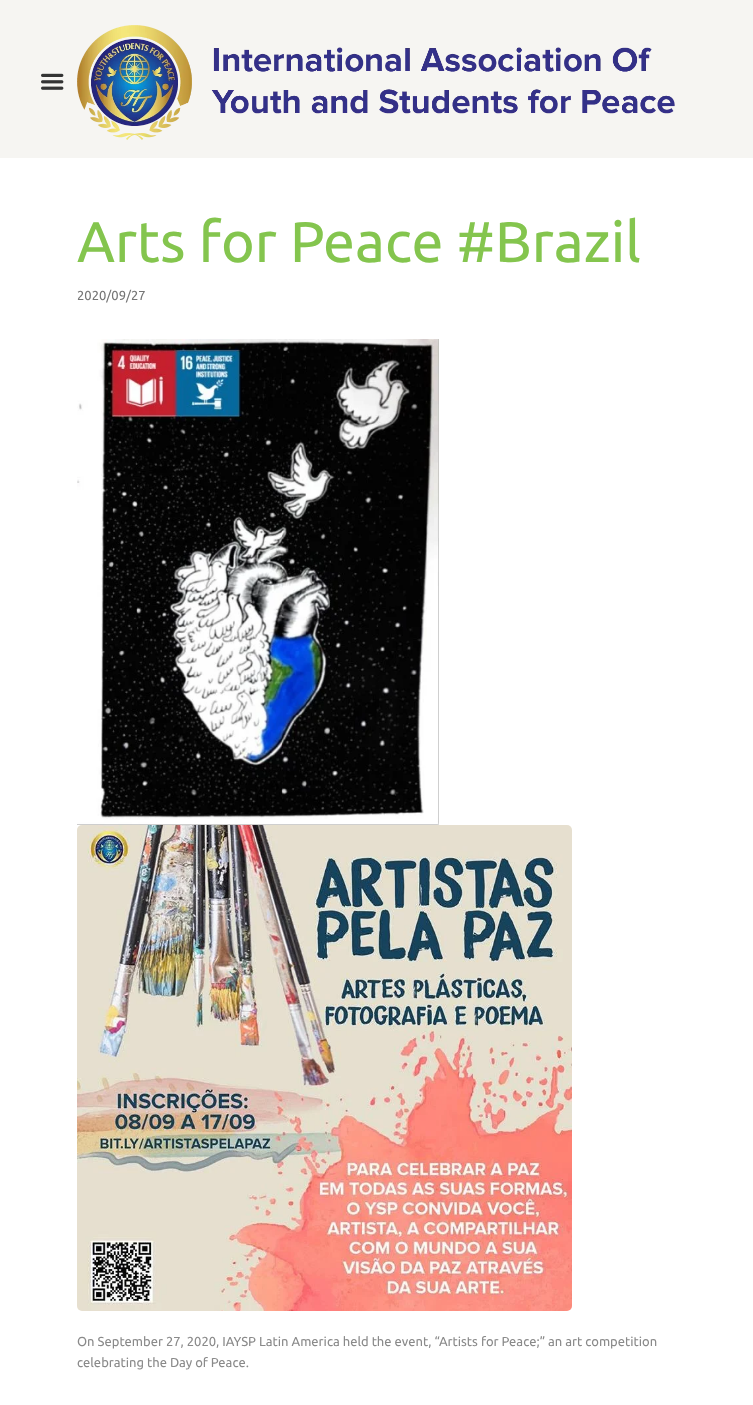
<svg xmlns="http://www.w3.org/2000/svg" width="753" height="1405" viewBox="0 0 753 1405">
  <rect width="100%" height="100%" fill="#fff"/>
  <path d="M0 0h753v158H0z" fill="#f6f5f2"/>
  <image x="41" y="73" width="23" height="17" href="img/1.png"/>
  <image x="77" y="25" width="598" height="115" href="img/2.png"/>
  <image x="77" y="339" width="362" height="486" href="img/3.png"/>
  <image x="77" y="825" width="495" height="486" href="img/4.png"/>
  <text x="77" y="262" font-family="Ubuntu" font-size="57.25" fill="#84c54e">Arts for Peace #Brazil</text>
  <text x="77" y="300" font-family="Ubuntu" font-size="13" fill="#757575">2020/09/27</text>
  <g font-family="Ubuntu" font-size="13" fill="#8a8a8a">
    <text x="77" y="1346">On September 27, 2020, IAYSP Latin America held the event, “Artists for Peace;” an art competition</text>
    <text x="77" y="1367">celebrating the Day of Peace.</text>
  </g>
</svg>
